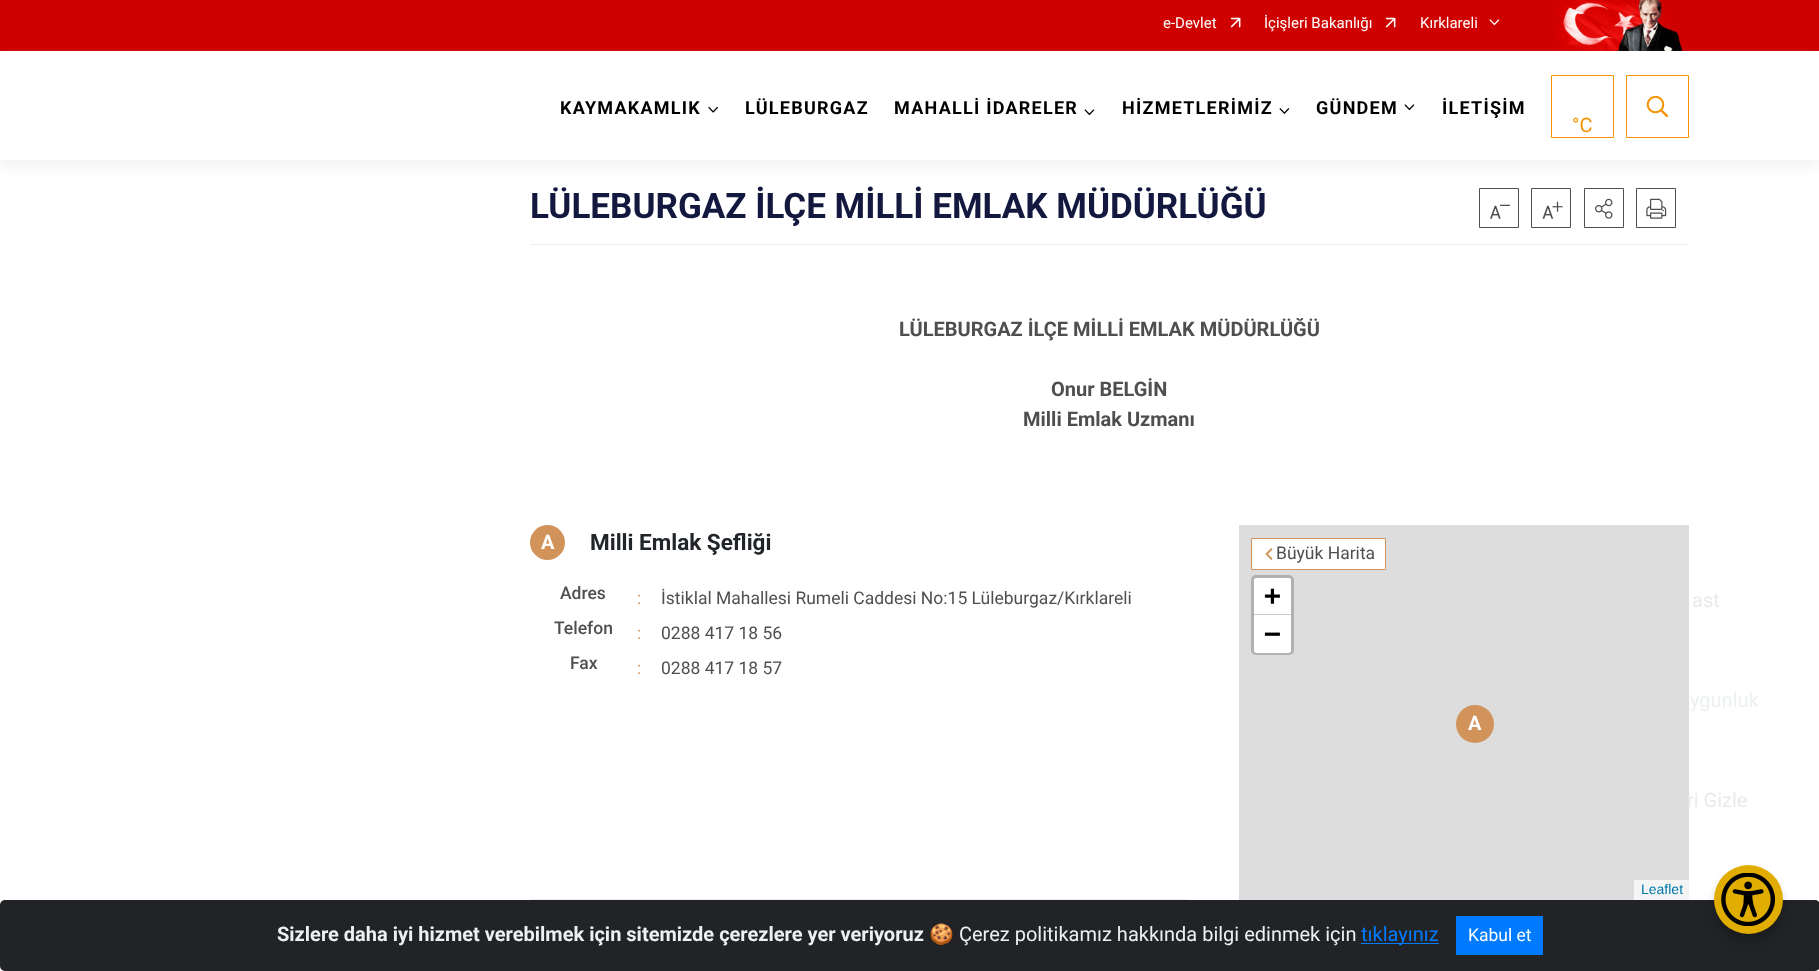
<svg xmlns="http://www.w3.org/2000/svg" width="1819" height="971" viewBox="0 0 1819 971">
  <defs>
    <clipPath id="clip1"><path d="M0 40H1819V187H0ZM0 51H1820V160H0Z" clip-rule="evenodd"/></clipPath>
  </defs>
  <rect width="100%" height="100%" fill="#fff"/>
  <path d="M0 0h1819v51H0z" fill="#ce0000"/>
  <image x="1230" y="17" width="11" height="11" href="img/1.png"/>
  <image x="1385" y="17" width="11" height="11" href="img/1.png"/>
  <image x="1489" y="19" width="11" height="7" href="img/2.png"/>
  <image x="1556" y="0" width="127" height="51" href="img/3.png"/>
  <g clip-path="url(#clip1)">
    <path d="M0 59h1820v109H0z" fill="#eeeeee9e" filter="blur(6px)"/>
  </g>
  <image x="708" y="106" width="10" height="7" href="img/4.png"/>
  <image x="1084" y="109" width="11" height="7" href="img/5.png"/>
  <image x="1279" y="108" width="11" height="6" href="img/6.png"/>
  <image x="1404" y="104" width="11" height="7" href="img/5.png"/>
  <path d="M1551.5 75.5h62v62H1551.5z" fill="none" stroke="#f59300"/>
  <path d="M1626.5 75.5h62v62H1626.5z" fill="none" stroke="#f59300"/>
  <image x="1646" y="95" width="23" height="23" href="img/7.png"/>
  <path d="M530 244h1159v1H530z" fill="#eee"/>
  <path d="M1479.5 188.5h39v39H1479.5z" fill="none" stroke="#4f4f4f"/>
  <image x="1490" y="204" width="20" height="15" href="img/8.png"/>
  <path d="M1531.5 188.5h39v39H1531.5z" fill="none" stroke="#4f4f4f"/>
  <image x="1542" y="201" width="21" height="18" href="img/9.png"/>
  <path d="M1584.5 188.5h39v39H1584.5z" fill="none" stroke="#4f4f4f"/>
  <image x="1595" y="198" width="18" height="21" href="img/10.png"/>
  <path d="M1636.5 188.5h39v39H1636.5z" fill="none" stroke="#4f4f4f"/>
  <image x="1646" y="198" width="21" height="21" href="img/11.png"/>
  <path d="M530 899h659v1H530z" fill="#eee"/>
  <circle cx="547.5" cy="542.5" r="17.5" fill="#d2935b"/>
  <path d="M1239 525h450v375H1239z" fill="#ddd"/>
  <path d="M1251.5 538.5h134v31H1251.5z" fill="#fff" stroke="#d2935b"/>
  <image x="1265" y="548" width="8" height="12" href="img/12.png"/>
  <rect x="1252.5" y="576.5" width="40" height="77" rx="3.5" fill="none" stroke="#b1b1b1" stroke-width="3"/>
  <path d="M1256.5 578H1288.5C1290 578 1291 579 1291 580.5V615H1254V580.5C1254 579 1255 578 1256.5 578Z" fill="#fff"/>
  <path d="M1254 614h37v1H1254z" fill="#ccc"/>
  <path d="M1254 615H1291V650.5C1291 652 1290 653 1288.5 653H1256.5C1255 653 1254 652 1254 650.5Z" fill="#fff"/>
  <path d="M1634 880h55v20H1634z" fill="#f5f5f5"/>
  <circle cx="1475" cy="724" r="19" fill="#d2935b"/>
  <rect y="900" width="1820" height="71" rx="5" fill="#212327"/>
  <rect x="1714" y="873" width="69" height="68" rx="34" fill="#00000033" filter="blur(5px)"/>
  <circle cx="1748.5" cy="899.5" r="34.5" fill="#e1ad01"/>
  <image x="1721" y="873" width="54" height="53" href="img/13.png"/>
  <path d="M1361 943h78v1H1361z" fill="#007bff"/>
  <path d="M1456 916h87v39H1456z" fill="#007bff"/>
  <g font-family="Roboto" font-size="15" fill="#fff">
    <text x="1163" y="28">e-Devlet</text>
    <text x="1264" y="28">İçişleri Bakanlığı</text>
    <text x="1420" y="28">Kırklareli</text>
  </g>
  <g font-family="Roboto" font-size="18" font-weight="bold" letter-spacing="1.25" fill="#000">
    <text x="560" y="114">KAYMAKAMLIK</text>
    <text x="745" y="114">LÜLEBURGAZ</text>
    <text x="894" y="114">MAHALLİ İDARELER</text>
    <text x="1122" y="114">HİZMETLERİMİZ</text>
    <text x="1316" y="114">GÜNDEM</text>
    <text x="1442" y="114">İLETİŞİM</text>
  </g>
  <text x="1572" y="132" font-family="Roboto" font-size="20" fill="#f59300">°C</text>
  <text x="530" y="218" font-family="Roboto" font-size="35" font-weight="bold" fill="#13183e">LÜLEBURGAZ İLÇE MİLLİ EMLAK MÜDÜRLÜĞÜ</text>
  <g font-family="Roboto" font-size="20" font-weight="bold" fill="#4f4f4f">
    <text x="899" y="336">LÜLEBURGAZ İLÇE MİLLİ EMLAK MÜDÜRLÜĞÜ</text>
    <text x="1051" y="396">Onur BELGİN</text>
    <text x="1023" y="426">Milli Emlak Uzmanı</text>
  </g>
  <text x="541" y="549" font-family="Roboto" font-size="20" font-weight="bold" fill="#fff">A</text>
  <text x="590" y="550" font-family="Roboto" font-size="22.5" font-weight="bold" fill="#212529">Milli Emlak Şefliği</text>
  <text x="560" y="599" font-family="Roboto" font-size="17.5" font-weight="500" fill="#4f4f4f">Adres</text>
  <text x="637" y="604" font-family="Roboto" font-size="17.5" fill="#d2935b">:</text>
  <text x="661" y="604" font-family="Roboto" font-size="17.5" fill="#4f4f4f">İstiklal Mahallesi Rumeli Caddesi No:15 Lüleburgaz/Kırklareli</text>
  <text x="554" y="634" font-family="Roboto" font-size="17.5" font-weight="500" fill="#4f4f4f">Telefon</text>
  <text x="637" y="639" font-family="Roboto" font-size="17.5" fill="#d2935b">:</text>
  <text x="661" y="639" font-family="Roboto" font-size="17.5" fill="#4f4f4f">0288 417 18 56</text>
  <text x="570" y="669" font-family="Roboto" font-size="17.5" font-weight="500" fill="#4f4f4f">Fax</text>
  <text x="637" y="674" font-family="Roboto" font-size="17.5" fill="#d2935b">:</text>
  <g font-family="Roboto" font-size="17.5" fill="#4f4f4f">
    <text x="661" y="674">0288 417 18 57</text>
    <text x="1276" y="559">Büyük Harita</text>
  </g>
  <g font-family="DejaVu Sans Mono" font-size="28" font-weight="bold" fill="#000">
    <text x="1264" y="605">+</text>
    <text x="1264" y="643">−</text>
  </g>
  <text x="1641" y="894" font-family="Liberation Sans" font-size="14" fill="#0078a8">Leaflet</text>
  <text x="1468" y="730" font-family="Roboto" font-size="20" font-weight="bold" fill="#fff">A</text>
  <text x="1692" y="607" font-family="Roboto" font-size="20" fill="#eaeaea">ast</text>
  <text x="1690" y="707" font-family="Roboto" font-size="20" fill="#ecf0f1">ygunluk</text>
  <text x="1687" y="807" font-family="Roboto" font-size="20" fill="#eaeaea">ri Gizle</text>
  <text x="277" y="941" font-family="Roboto" font-size="20" font-weight="bold" fill="#ecf0f1">Sizlere daha iyi hizmet verebilmek için sitemizde çerezlere yer veriyoruz</text>
  <text x="929" y="941" font-family="Noto Color Emoji" font-size="20" fill="#ecf0f1">🍪</text>
  <text x="959" y="941" font-family="Roboto" font-size="20" fill="#ecf0f1">Çerez politikamız hakkında bilgi edinmek için</text>
  <text x="1361" y="941" font-family="Roboto" font-size="20" fill="#007bff">tıklayınız</text>
  <text x="1468" y="941" font-family="Roboto" font-size="17.5" fill="#fff">Kabul et</text>
</svg>
